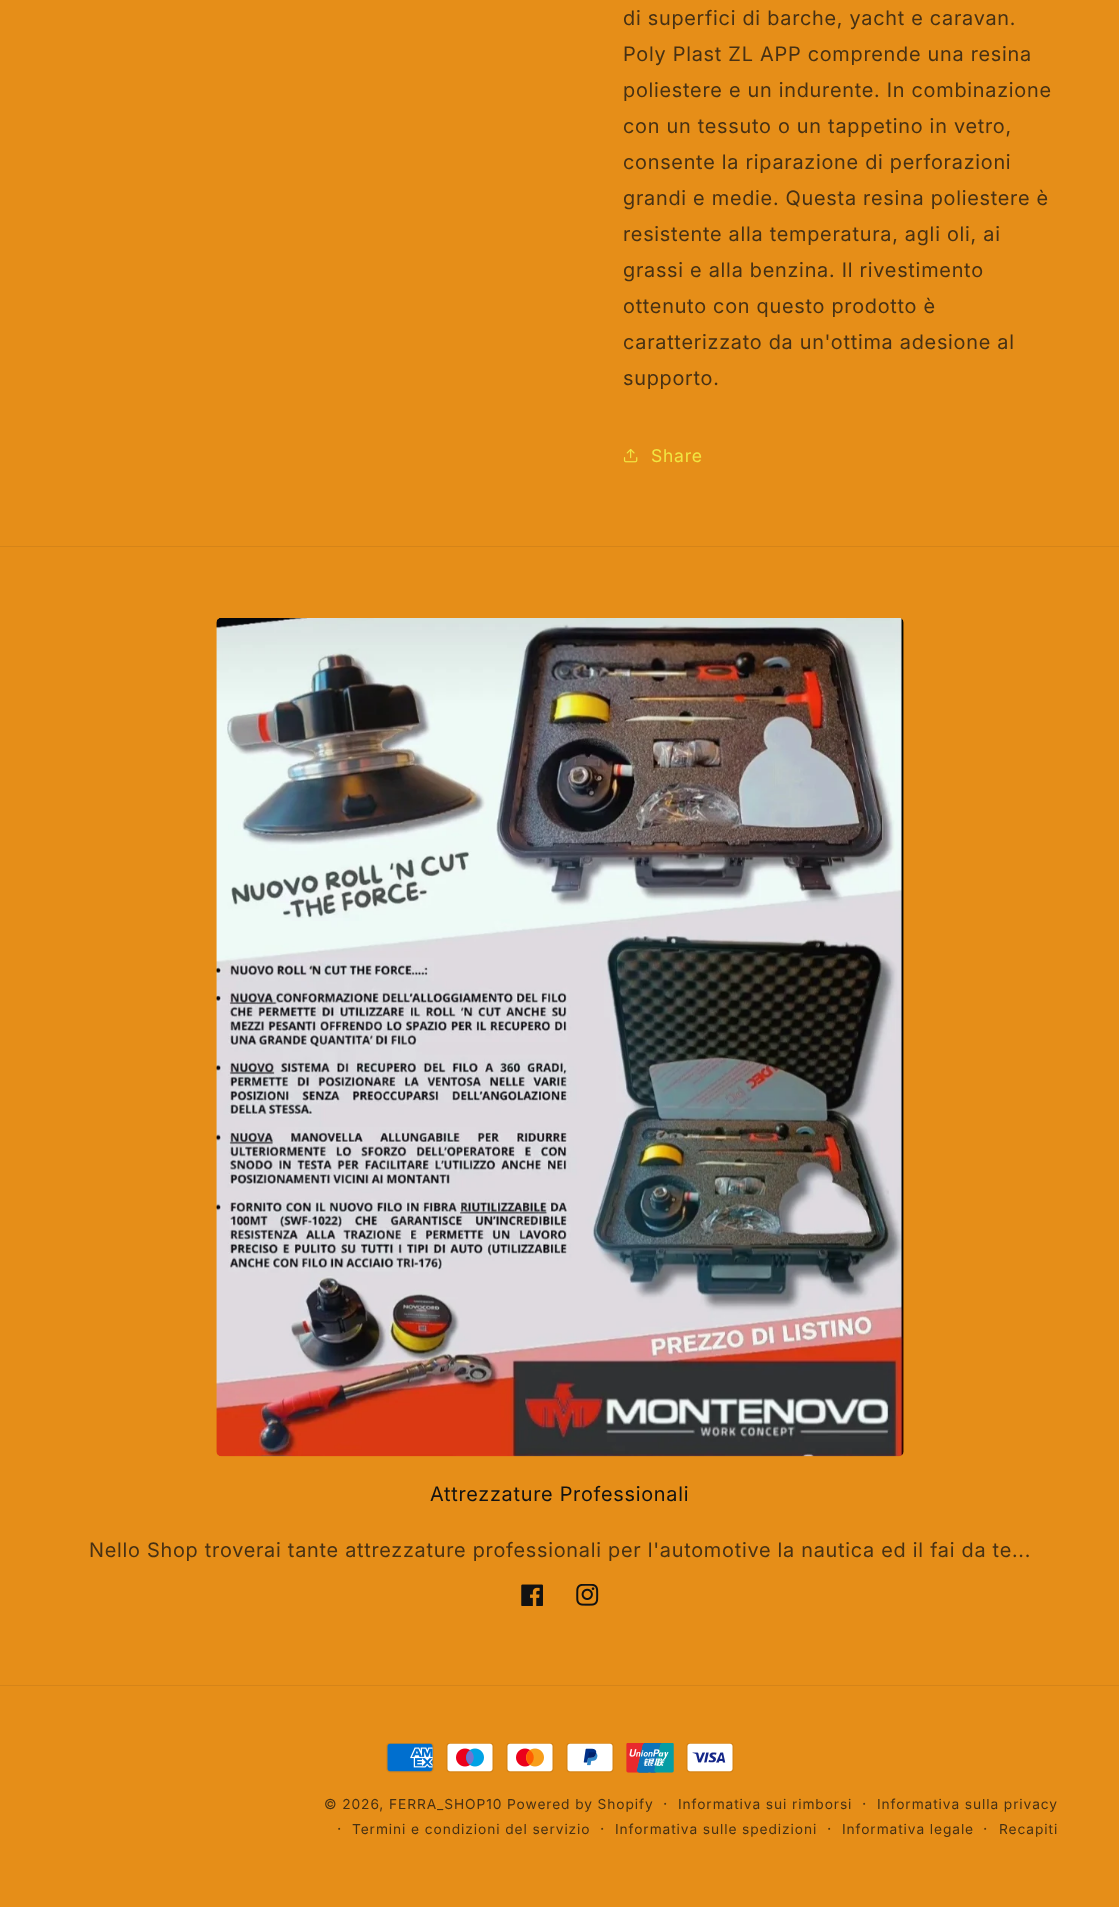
<svg xmlns="http://www.w3.org/2000/svg" width="1119" height="1907" viewBox="0 0 1119 1907">
  <rect width="100%" height="100%" fill="#e68e18"/>
  <image x="623" y="449" width="15" height="14" href="img/1.png"/>
  <path d="M0 546h1119v1H0z" fill="#d58418"/>
  <image x="216" y="618" width="688" height="839" href="img/2.png"/>
  <image x="521" y="1584" width="22" height="22" href="img/3.png"/>
  <image x="576" y="1584" width="23" height="22" href="img/4.png"/>
  <path d="M0 1685h1119v1H0z" fill="#d58418"/>
  <image x="386" y="1743" width="48" height="30" href="img/5.png"/>
  <image x="446" y="1743" width="48" height="30" href="img/6.png"/>
  <image x="506" y="1743" width="48" height="30" href="img/7.png"/>
  <image x="566" y="1743" width="48" height="30" href="img/8.png"/>
  <image x="626" y="1743" width="48" height="30" href="img/9.png"/>
  <image x="686" y="1743" width="48" height="30" href="img/10.png"/>
  <g font-family="Inter" font-size="20" letter-spacing="0.75" fill="#473114">
    <text x="623" y="25">di superfici di barche, yacht e caravan.</text>
    <text x="623" y="61">Poly Plast ZL APP comprende una resina</text>
    <text x="623" y="97">poliestere e un indurente. In combinazione</text>
    <text x="623" y="133">con un tessuto o un tappetino in vetro,</text>
    <text x="623" y="169">consente la riparazione di perforazioni</text>
    <text x="623" y="205">grandi e medie. Questa resina poliestere è</text>
    <text x="623" y="241">resistente alla temperatura, agli oli, ai</text>
    <text x="623" y="277">grassi e alla benzina. Il rivestimento</text>
    <text x="623" y="313">ottenuto con questo prodotto è</text>
    <text x="623" y="349">caratterizzato da un'ottima adesione al</text>
    <text x="623" y="385">supporto.</text>
  </g>
  <text x="651" y="462" font-family="'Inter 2'" font-size="17.5" letter-spacing="0.75" fill="#f1e642">Share</text>
  <text x="430" y="1501" font-family="Inter" font-size="20" letter-spacing="0.75" fill="#121212">Attrezzature Professionali</text>
  <text x="89" y="1557" font-family="Inter" font-size="20" letter-spacing="0.75" fill="#473114">Nello Shop troverai tante attrezzature professionali per l'automotive la nautica ed il fai da te...</text>
  <text x="324" y="1809" font-family="'Inter 2'" font-size="13.75" letter-spacing="0.9" fill="#473114">© 2026, FERRA_SHOP10</text>
  <text x="663" y="1809" font-family="'Inter 2'" font-size="15" letter-spacing="0.9" fill="#473114">·</text>
  <text x="678" y="1809" font-family="'Inter 2'" font-size="13.75" letter-spacing="0.9" fill="#473114">Informativa sui rimborsi</text>
  <text x="862" y="1809" font-family="'Inter 2'" font-size="15" letter-spacing="0.9" fill="#473114">·</text>
  <text x="877" y="1809" font-family="'Inter 2'" font-size="13.75" letter-spacing="0.9" fill="#473114">Informativa sulla privacy</text>
  <text x="337" y="1834" font-family="'Inter 2'" font-size="15" letter-spacing="0.9" fill="#473114">·</text>
  <text x="352" y="1834" font-family="'Inter 2'" font-size="13.75" letter-spacing="0.9" fill="#473114">Termini e condizioni del servizio</text>
  <text x="600" y="1834" font-family="'Inter 2'" font-size="15" letter-spacing="0.9" fill="#473114">·</text>
  <text x="615" y="1834" font-family="'Inter 2'" font-size="13.75" letter-spacing="0.9" fill="#473114">Informativa sulle spedizioni</text>
  <text x="827" y="1834" font-family="'Inter 2'" font-size="15" letter-spacing="0.9" fill="#473114">·</text>
  <text x="842" y="1834" font-family="'Inter 2'" font-size="13.75" letter-spacing="0.9" fill="#473114">Informativa legale</text>
  <text x="983" y="1834" font-family="'Inter 2'" font-size="15" letter-spacing="0.9" fill="#473114">·</text>
  <g font-family="'Inter 2'" font-size="13.75" letter-spacing="0.9" fill="#473114">
    <text x="999" y="1834">Recapiti</text>
    <text x="507" y="1809">Powered by Shopify</text>
  </g>
</svg>
